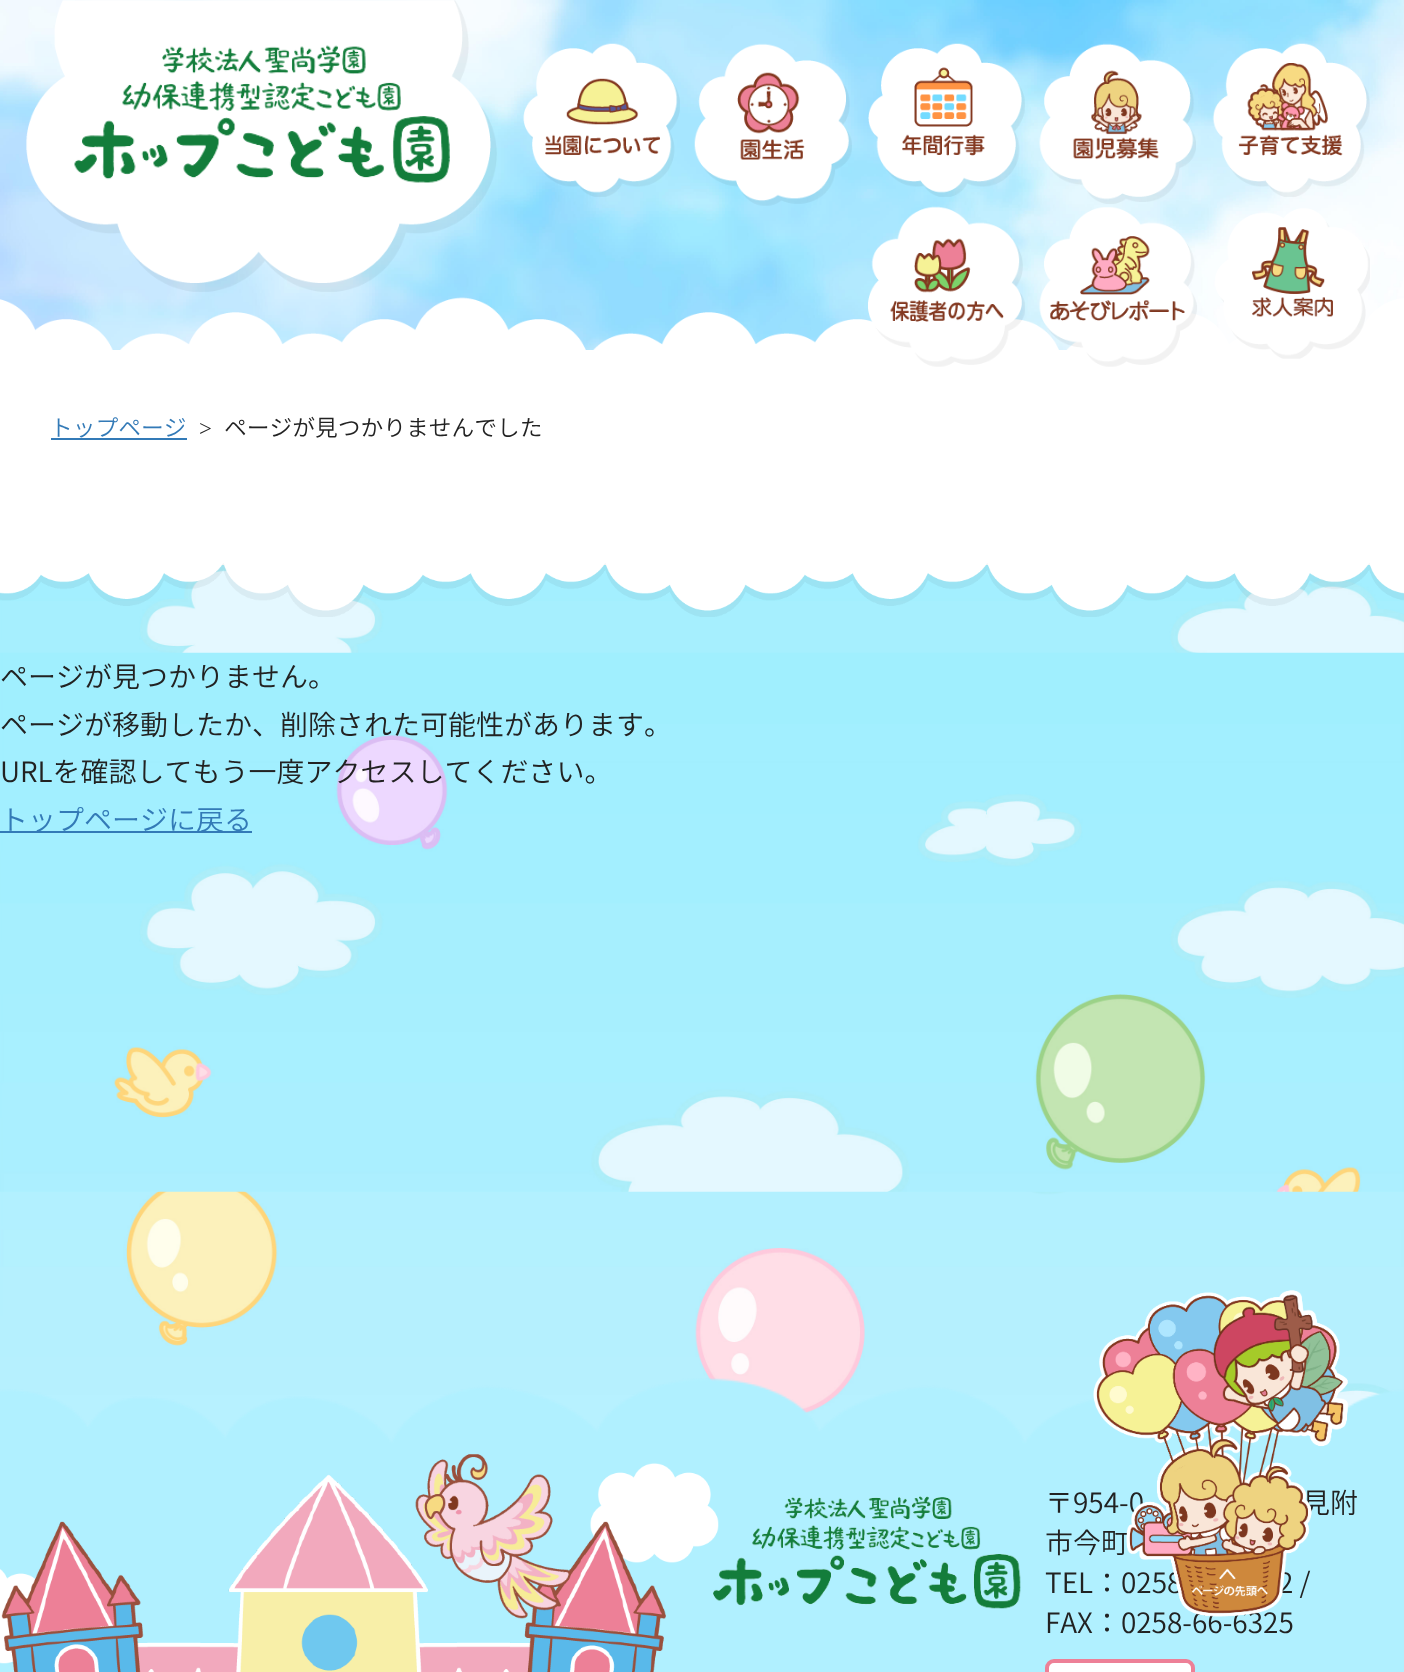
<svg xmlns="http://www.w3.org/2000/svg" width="1404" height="1672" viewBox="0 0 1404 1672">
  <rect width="100%" height="100%" fill="#fff"/>
  <image x="0" y="0" width="1404" height="350" href="img/1.png"/>
  <image x="26" y="0" width="471" height="292" href="img/2.png"/>
  <image x="74" y="45" width="376" height="138" href="img/3.png"/>
  <image x="523" y="43" width="157" height="154" href="img/4.png"/>
  <image x="694" y="43" width="158" height="163" href="img/5.png"/>
  <image x="868" y="43" width="157" height="154" href="img/6.png"/>
  <image x="1039" y="43" width="157" height="161" href="img/7.png"/>
  <image x="1212" y="43" width="158" height="154" href="img/8.png"/>
  <image x="0" y="297" width="1404" height="53" href="img/13.png"/>
  <image x="868" y="206" width="157" height="161" href="img/9.png"/>
  <image x="1039" y="207" width="158" height="160" href="img/10.png"/>
  <image x="1215" y="208" width="155" height="151" href="img/11.png"/>
  <image x="0" y="565" width="1404" height="880" href="img/12.png"/>
  <path d="M51 438h136v2H51z" fill="#337ab7"/>
  <image x="0" y="563" width="1404" height="54" href="img/14.png"/>
  <image x="0" y="652" width="1404" height="540" href="img/15.png"/>
  <path d="M0 831h252v2H0z" fill="#337ab7"/>
  <image x="0" y="1378" width="1404" height="294" href="img/16.png"/>
  <image x="0" y="1454" width="719" height="218" href="img/18.png"/>
  <image x="713" y="1496" width="308" height="113" href="img/19.png"/>
  <rect x="1047" y="1661" width="146" height="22" rx="7" fill="#fff" stroke="#ed8097" stroke-width="4"/>
  <text x="50" y="436" font-family="Noto Sans CJK JP" font-size="22.75" font-weight="300" fill="#337ab7">トップページ</text>
  <text x="199" y="436" font-family="Liberation Serif" font-size="22.75" fill="#222">&gt;</text>
  <text x="224" y="436" font-family="Noto Sans CJK JP" font-size="22.75" font-weight="300" fill="#222">ページが見つかりませんでした</text>
  <g font-family="Noto Sans CJK JP" font-size="28" font-weight="300" fill="#222">
    <text x="0" y="687">ページが見つかりません。</text>
    <text x="0" y="735">ページが移動したか、削除された可能性があります。</text>
    <text x="0" y="782">URLを確認してもう一度アクセスしてください。</text>
  </g>
  <text x="0" y="830" font-family="Noto Sans CJK JP" font-size="28" font-weight="300" fill="#337ab7">トップページに戻る</text>
  <g font-family="Noto Sans CJK JP" font-size="28" font-weight="300" fill="#222">
    <text x="1045" y="1513">〒954-0</text>
    <text x="1302" y="1513">見附</text>
    <text x="1045" y="1553">市今町</text>
    <text x="1045" y="1593">TEL：0258</text>
    <text x="1278" y="1593">2 /</text>
    <text x="1045" y="1633">FAX：0258-66-6325</text>
  </g>
  <image x="1093" y="1290" width="256" height="327" href="img/17.png"/>
</svg>
